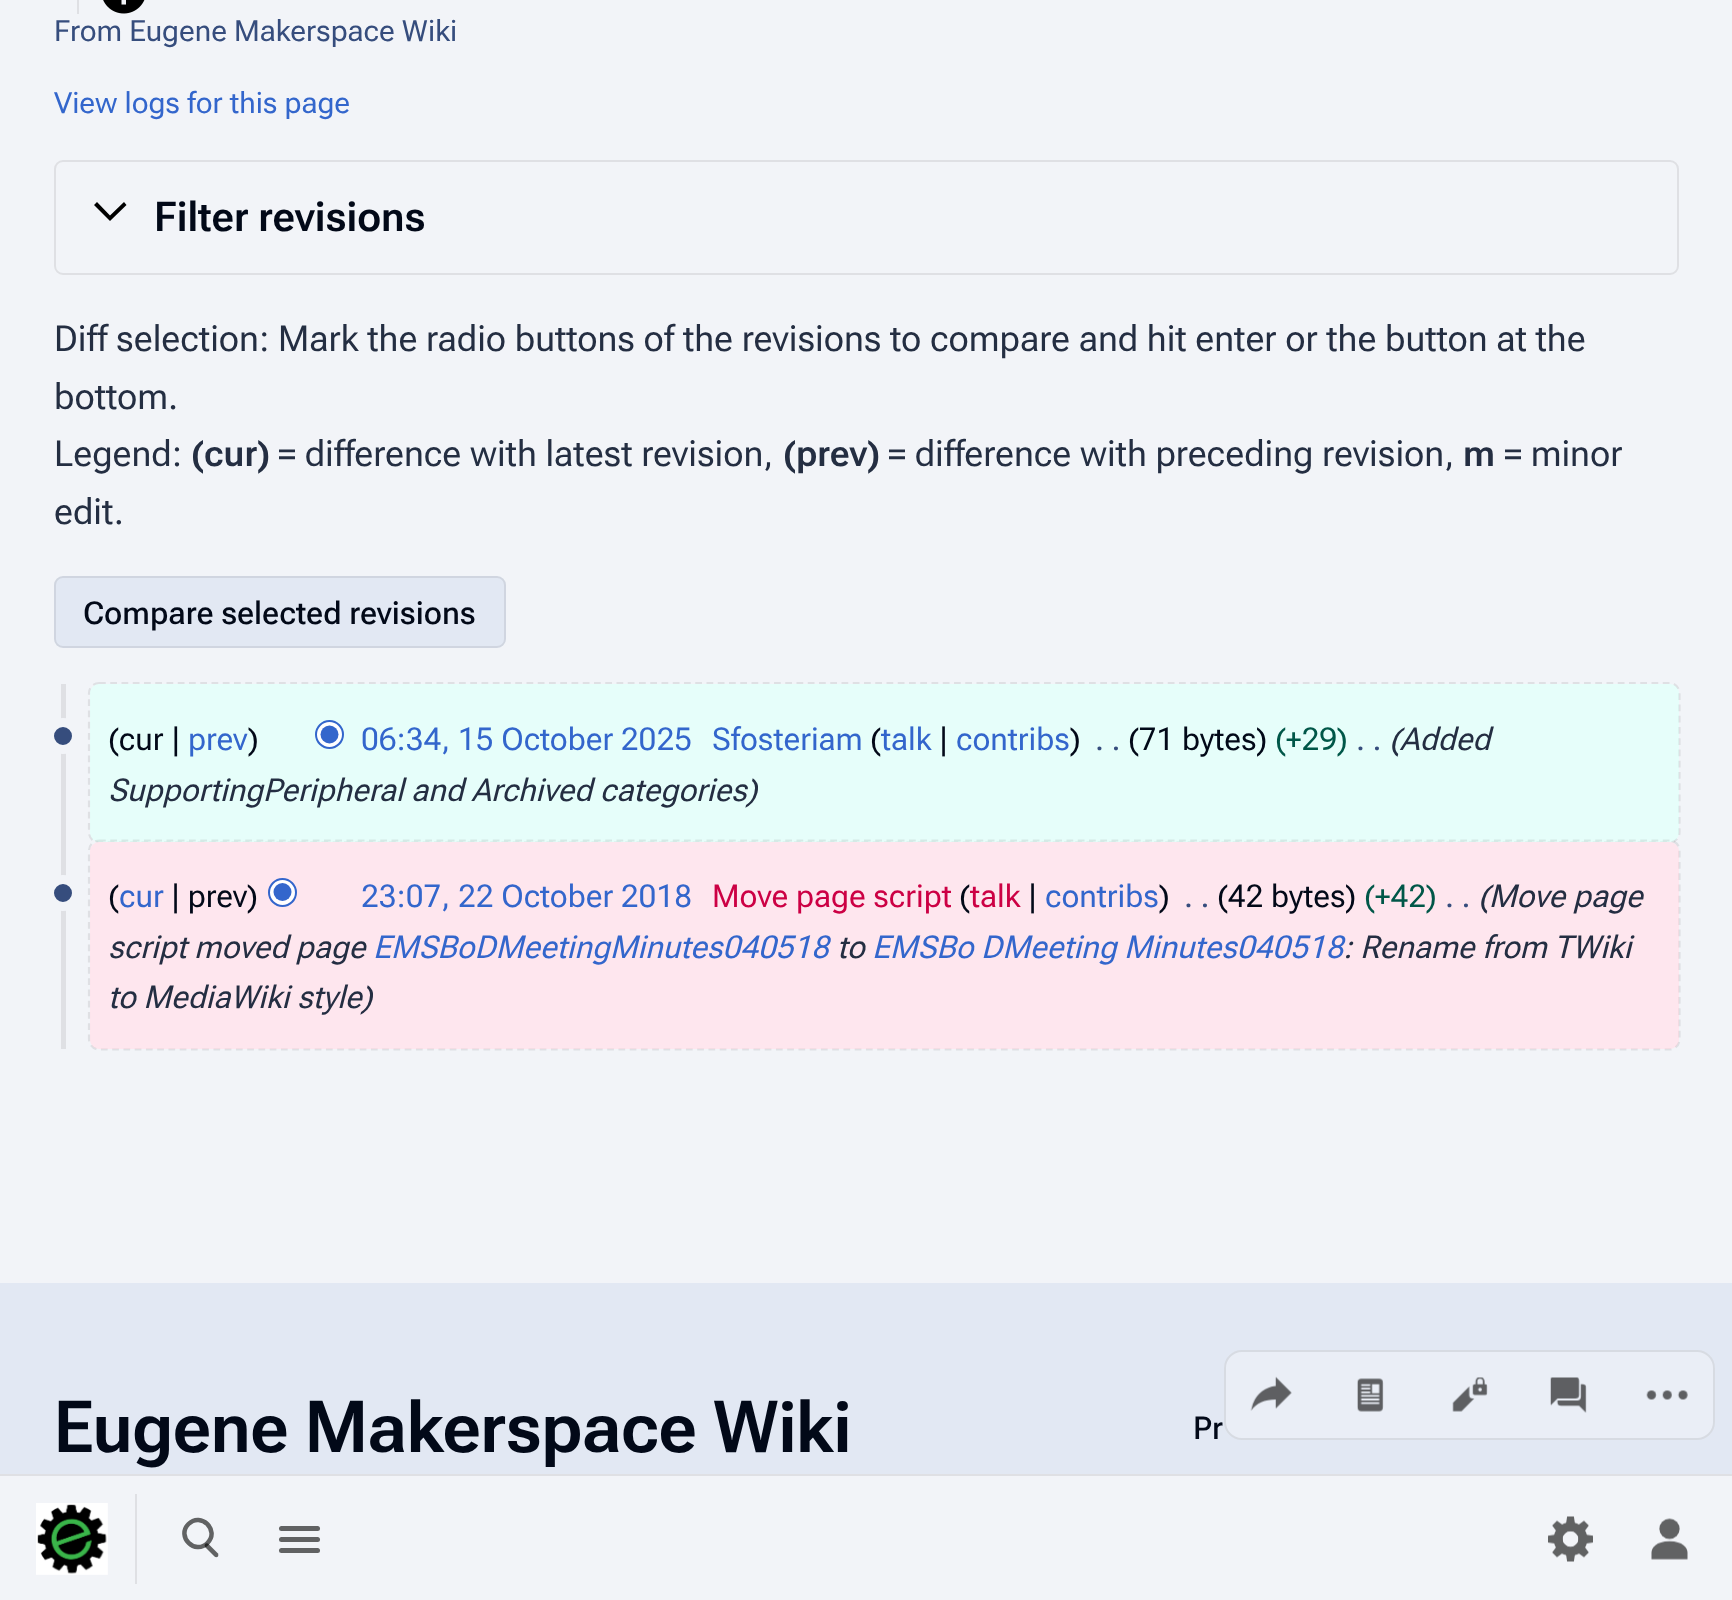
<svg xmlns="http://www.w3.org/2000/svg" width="1732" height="1600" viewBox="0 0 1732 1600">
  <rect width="100%" height="100%" fill="#f2f4f8"/>
  <path d="M77 0h2v14H77z" fill="#dfe0e4"/>
  <image x="103" y="0" width="42" height="14" href="img/1.png"/>
  <path d="M0 1283h1732v191H0z" fill="#e2e8f3"/>
  <rect x="1224" y="1350" width="491" height="90" rx="18" fill="#eaeef6"/>
  <rect x="1225" y="1351" width="489" height="88" rx="17" fill="none" stroke="#00000014" stroke-width="2"/>
  <image x="1250" y="1376" width="42" height="35" href="img/2.png"/>
  <image x="1357" y="1378" width="27" height="34" href="img/3.png"/>
  <image x="1452" y="1377" width="36" height="35" href="img/4.png"/>
  <image x="1550" y="1377" width="37" height="36" href="img/5.png"/>
  <image x="1646" y="1390" width="42" height="10" href="img/6.png"/>
  <rect x="55" y="161" width="1623" height="113" rx="8" fill="none" stroke="#dfe0e4" stroke-width="2"/>
  <path d="M124 202L110 215.5L97 202L94 205L110 221L126.5 205Z" fill="#000"/>
  <rect x="54" y="576" width="452" height="72" rx="9" fill="#e2e8f3"/>
  <rect x="55" y="577" width="450" height="70" rx="8" fill="none" stroke="#00000014" stroke-width="2"/>
  <path d="M61 684h5v365H61z" fill="#dfe0e4"/>
  <rect x="90" y="684" width="1589" height="158" rx="9" fill="#e6fefa"/>
  <circle cx="329.5" cy="734.5" r="13.5" fill="#fff" stroke="#36c" stroke-width="2"/>
  <circle cx="329.5" cy="734.5" r="9" fill="#36c"/>
  <path d="M99 683H1669.5C1675 683 1679.5 687.5 1679.5 693V832.5C1679.5 838 1675 842.5 1669.5 842.5H99C93.5 842.5 89 838 89 832.5V693C89 687.5 93.5 683 99 683Z" fill="none" stroke="#00000014" stroke-width="2.2" stroke-dasharray="6.75 4.5"/>
  <circle cx="63" cy="736" r="13.5" fill="#364d7d" stroke="#f2f4f8" stroke-width="9"/>
  <rect x="90" y="842" width="1589" height="207" rx="9" fill="#fee6ee"/>
  <circle cx="282.5" cy="892.5" r="13.5" fill="#fff" stroke="#36c" stroke-width="2"/>
  <circle cx="282.5" cy="892" r="9" fill="#36c"/>
  <path d="M99 840.5H1669.5C1675 840.5 1679.5 845 1679.5 850.5V1039.5C1679.5 1045 1675 1049.5 1669.5 1049.5H99C93.5 1049.5 89 1045 89 1039.5V850.5C89 845 93.5 840.5 99 840.5Z" fill="none" stroke="#00000014" stroke-width="2.2" stroke-dasharray="6.75 4.5"/>
  <circle cx="63" cy="893" r="13.5" fill="#364d7d" stroke="#f2f4f8" stroke-width="9"/>
  <path d="M0 1474h1732v2H0z" fill="#dfe0e4"/>
  <path d="M135 1494h2v90H135z" fill="#dfe0e4"/>
  <image x="36" y="1503" width="72" height="72" href="img/7.png"/>
  <path d="M205 1544C206 1543 207.5 1543 208.5 1544L218 1553.5C218.5 1554.5 218.5 1555.5 218 1556.5C217 1557.5 215.5 1557.5 214.5 1556.5L205 1547C204.5 1546 204.5 1545 205 1544Z" fill="#616263"/>
  <path d="M188.5 1524C201 1511.5 220 1530.5 207.5 1543C195 1555.5 176 1536.5 188.5 1524Z" fill="none" stroke="#00000099" stroke-width="4.5"/>
  <rect x="279" y="1526" width="41" height="5" rx="2.5" fill="#616263"/>
  <rect x="279" y="1537" width="41" height="5" rx="2.5" fill="#616263"/>
  <rect x="279" y="1548" width="41" height="5" rx="2.5" fill="#616263"/>
  <image x="1548" y="1516" width="45" height="46" href="img/8.png"/>
  <image x="1651" y="1518" width="37" height="42" href="img/9.png"/>
  <text x="54" y="41" font-family="'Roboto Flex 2'" font-size="29.25" fill="#364d7d">From Eugene Makerspace Wiki</text>
  <text x="54" y="113" font-family="'Roboto Flex 2'" font-size="29.25" fill="#36c">View logs for this page</text>
  <text x="154" y="231" font-family="'Roboto Flex 2'" font-size="41" font-weight="600" fill="#020918">Filter revisions</text>
  <g font-family="Roboto Flex" font-size="36" fill="#242e42">
    <text x="54" y="351">Diff selection: Mark the radio buttons of the revisions to compare and hit enter or the button at the</text>
    <text x="54" y="409">bottom.</text>
    <text x="54" y="466">Legend:</text>
  </g>
  <text x="191" y="466" font-family="Roboto Flex" font-size="36" font-weight="600" fill="#242e42">(cur)</text>
  <text x="278" y="466" font-family="Roboto Flex" font-size="36" fill="#242e42">= difference with latest revision,</text>
  <text x="783" y="466" font-family="Roboto Flex" font-size="36" font-weight="600" fill="#242e42">(prev)</text>
  <text x="888" y="466" font-family="Roboto Flex" font-size="36" fill="#242e42">= difference with preceding revision,</text>
  <text x="1463" y="466" font-family="Roboto Flex" font-size="36" font-weight="600" fill="#242e42">m</text>
  <g font-family="Roboto Flex" font-size="36" fill="#242e42">
    <text x="1504" y="466">= minor</text>
    <text x="54" y="524">edit.</text>
  </g>
  <text x="83" y="624" font-family="Roboto Flex" font-size="31.5" font-weight="500" fill="#020918">Compare selected revisions</text>
  <text x="108" y="750" font-family="'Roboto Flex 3'" font-size="31.5" fill="#020918">(cur |</text>
  <text x="188" y="750" font-family="'Roboto Flex 3'" font-size="31.5" fill="#36c">prev</text>
  <text x="248" y="750" font-family="'Roboto Flex 3'" font-size="31.5" fill="#020918">)</text>
  <g font-family="'Roboto Flex 3'" font-size="31.5" fill="#36c">
    <text x="361" y="750">06:34, 15 October 2025</text>
    <text x="712" y="750">Sfosteriam</text>
  </g>
  <text x="870" y="750" font-family="'Roboto Flex 3'" font-size="31.5" fill="#020918">(</text>
  <text x="881" y="750" font-family="'Roboto Flex 3'" font-size="31.5" fill="#36c">talk</text>
  <text x="939" y="750" font-family="'Roboto Flex 3'" font-size="31.5" fill="#020918">|</text>
  <text x="956" y="750" font-family="'Roboto Flex 3'" font-size="31.5" fill="#36c">contribs</text>
  <text x="1070" y="750" font-family="'Roboto Flex 3'" font-size="31.5" fill="#020918">)</text>
  <text x="1095" y="750" font-family="'Roboto Flex 3'" font-size="31.5" fill="#364d7d">. .</text>
  <text x="1128" y="750" font-family="'Roboto Flex 3'" font-size="31.5" fill="#020918">(71 bytes)</text>
  <text x="1275" y="750" font-family="'Roboto Flex 3'" font-size="31.5" fill="#005748">(+29)</text>
  <text x="1356" y="750" font-family="'Roboto Flex 3'" font-size="31.5" fill="#364d7d">. .</text>
  <g font-family="Roboto Flex" font-size="31.5" font-style="italic" fill="#242e42">
    <text x="1389" y="750">(Added</text>
    <text x="108" y="801">SupportingPeripheral and Archived categories)</text>
  </g>
  <text x="108" y="907" font-family="'Roboto Flex 3'" font-size="31.5" fill="#020918">(</text>
  <text x="119" y="907" font-family="'Roboto Flex 3'" font-size="31.5" fill="#36c">cur</text>
  <text x="171" y="907" font-family="'Roboto Flex 3'" font-size="31.5" fill="#020918">| prev)</text>
  <text x="361" y="907" font-family="'Roboto Flex 3'" font-size="31.5" fill="#36c">23:07, 22 October 2018</text>
  <text x="712" y="907" font-family="'Roboto Flex 3'" font-size="31.5" fill="#c04">Move page script</text>
  <text x="959" y="907" font-family="'Roboto Flex 3'" font-size="31.5" fill="#020918">(</text>
  <text x="970" y="907" font-family="'Roboto Flex 3'" font-size="31.5" fill="#c04">talk</text>
  <text x="1028" y="907" font-family="'Roboto Flex 3'" font-size="31.5" fill="#020918">|</text>
  <text x="1045" y="907" font-family="'Roboto Flex 3'" font-size="31.5" fill="#36c">contribs</text>
  <text x="1159" y="907" font-family="'Roboto Flex 3'" font-size="31.5" fill="#020918">)</text>
  <text x="1184" y="907" font-family="'Roboto Flex 3'" font-size="31.5" fill="#364d7d">. .</text>
  <text x="1217" y="907" font-family="'Roboto Flex 3'" font-size="31.5" fill="#020918">(42 bytes)</text>
  <text x="1364" y="907" font-family="'Roboto Flex 3'" font-size="31.5" fill="#005748">(+42)</text>
  <text x="1445" y="907" font-family="'Roboto Flex 3'" font-size="31.5" fill="#364d7d">. .</text>
  <g font-family="Roboto Flex" font-size="31.5" font-style="italic" fill="#242e42">
    <text x="1478" y="907">(Move page</text>
    <text x="108" y="958">script moved page</text>
  </g>
  <text x="373" y="958" font-family="Roboto Flex" font-size="31.5" font-style="italic" fill="#36c">EMSBoDMeetingMinutes040518</text>
  <text x="837" y="958" font-family="Roboto Flex" font-size="31.5" font-style="italic" fill="#242e42">to</text>
  <text x="872" y="958" font-family="Roboto Flex" font-size="31.5" font-style="italic" fill="#36c">EMSBo DMeeting Minutes040518</text>
  <g font-family="Roboto Flex" font-size="31.5" font-style="italic" fill="#242e42">
    <text x="1343" y="958">: Rename from TWiki</text>
    <text x="108" y="1008">to MediaWiki style)</text>
  </g>
  <text x="54" y="1452" font-family="'Roboto Flex 3'" font-size="72" font-weight="600" fill="#020918">Eugene Makerspace Wiki</text>
  <text x="1193" y="1439" font-family="Roboto Flex" font-size="31.5" font-weight="500" fill="#020918">Pr</text>
</svg>
